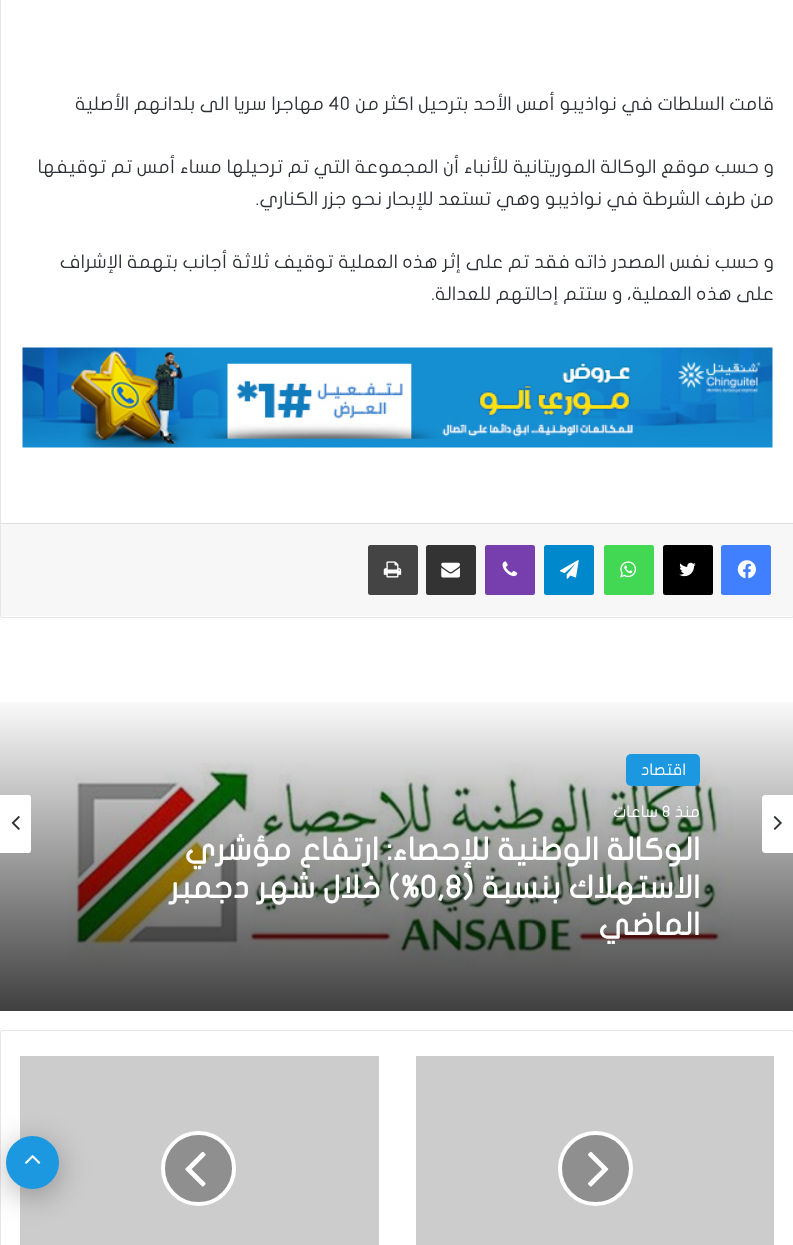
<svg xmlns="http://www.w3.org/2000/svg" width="793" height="1245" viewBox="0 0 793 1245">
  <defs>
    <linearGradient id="g1" gradientUnits="userSpaceOnUse" x1="397" y1="693" x2="397" y2="1011"><stop offset="0" stop-color="#000" stop-opacity="0"/><stop offset="1" stop-color="#000" stop-opacity="0.75"/></linearGradient>
    <clipPath id="clip1"><path d="M94 831h606v113H94z"/></clipPath>
  </defs>
  <rect width="100%" height="100%" fill="#fff"/>
  <rect x="0.5" y="-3.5" width="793" height="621" rx="2" fill="none" stroke="#e6e6e6"/>
  <image x="22" y="347" width="751" height="101" href="img/1.png"/>
  <path d="M1 524h792v92H1z" fill="#f7f7f7"/>
  <path d="M1 523h792v1H1z" fill="#dedede"/>
  <rect x="721" y="545" width="50" height="50" rx="2.5" fill="#4080ff"/>
  <image x="737" y="560" width="19" height="19" href="img/2.png"/>
  <rect x="663" y="545" width="50" height="50" rx="2.5" fill="#000"/>
  <image x="679" y="562" width="17" height="15" href="img/3.png"/>
  <rect x="604" y="545" width="50" height="50" rx="2.5" fill="#43d854"/>
  <image x="620" y="561" width="17" height="17" href="img/4.png"/>
  <rect x="544" y="545" width="50" height="50" rx="2.5" fill="#08c"/>
  <image x="560" y="560" width="19" height="19" href="img/5.png"/>
  <rect x="485" y="545" width="50" height="50" rx="2.5" fill="#773ead"/>
  <image x="502" y="561" width="16" height="16" href="img/6.png"/>
  <rect x="426" y="545" width="50" height="50" rx="2.5" fill="#333"/>
  <image x="441" y="562" width="19" height="16" href="img/7.png"/>
  <rect x="368" y="545" width="50" height="50" rx="2.5" fill="#444"/>
  <image x="383" y="561" width="19" height="17" href="img/8.png"/>
  <image x="67" y="763" width="666" height="207" href="img/9.png"/>
  <path d="M0 702h793v309H0z" fill="url(#g1)"/>
  <rect x="626" y="754" width="74" height="32" rx="5" fill="#1b98e0"/>
  <path d="M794 853H765C764 853 762 852 762 850V798C762 796 764 795 765 795H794Z" fill="#fff"/>
  <image x="773" y="816" width="9" height="14" href="img/10.png"/>
  <path d="M29 853H0V795H29C30 795 31 796 31 798V850C31 852 30 853 29 853Z" fill="#fff"/>
  <image x="11" y="816" width="9" height="14" href="img/11.png"/>
  <rect x="0.5" y="1030.5" width="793" height="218" rx="2" fill="none" stroke="#e6e6e6"/>
  <path d="M416 1056h358v189H416z" fill="#ccc"/>
  <circle cx="595.5" cy="1168.5" r="35.5" fill="#8f8f8f" stroke="#fff" stroke-width="4"/>
  <image x="588" y="1151" width="21" height="36" href="img/12.png"/>
  <path d="M20 1056h359v189H20z" fill="#ccc"/>
  <circle cx="198.5" cy="1168.5" r="35.5" fill="#8f8f8f" stroke="#fff" stroke-width="4"/>
  <image x="185" y="1151" width="21" height="36" href="img/13.png"/>
  <rect x="6" y="1143" width="53" height="52" rx="26" fill="#0000004d" filter="blur(15.5px)"/>
  <circle cx="32.5" cy="1162.5" r="26.5" fill="#1b98e0"/>
  <image x="25" y="1155" width="16" height="9" href="img/14.png"/>
  <text x="774" y="110" font-family="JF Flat" font-size="18.75" direction="rtl" fill="#2c2f34">قامت السلطات في نواذيبو أمس الأحد بترحيل اكثر من</text>
  <text x="328" y="110" font-family="JF Flat" font-size="18.75" fill="#2c2f34">40</text>
  <g font-family="JF Flat" font-size="18.75" direction="rtl" fill="#2c2f34">
    <text x="324" y="110">مهاجرا سريا الى بلدانهم الأصلية</text>
    <text x="774" y="173">و حسب موقع الوكالة الموريتانية للأنباء أن المجموعة التي تم ترحيلها مساء أمس تم توقيفها</text>
    <text x="774" y="205">من طرف الشرطة في نواذيبو وهي تستعد للإبحار نحو جزر الكناري.</text>
    <text x="774" y="268">و حسب نفس المصدر ذاته فقد تم على إثر هذه العملية توقيف ثلاثة أجانب بتهمة الإشراف</text>
    <text x="774" y="300">على هذه العملية، و ستتم إحالتهم للعدالة.</text>
  </g>
  <g font-family="JF Flat" font-size="16" direction="rtl" fill="#fff">
    <text x="686" y="775">اقتصاد</text>
    <text x="700" y="817">منذ</text>
  </g>
  <text x="662" y="817" font-family="JF Flat" font-size="16" fill="#fff">8</text>
  <text x="658" y="817" font-family="JF Flat" font-size="16" direction="rtl" fill="#fff">ساعات</text>
  <g font-family="JF Flat" font-size="31.25" font-weight="bold" direction="rtl" fill="#fff">
    <text x="700" y="860">الوكالة الوطنية للإحصاء: ارتفاع مؤشري</text>
    <text x="700" y="898">الاستهلاك بنسبة (</text>
  </g>
  <text x="420" y="898" font-family="JF Flat" font-size="31.25" font-weight="bold" fill="#fff">0,8</text>
  <text x="420" y="898" font-family="JF Flat" font-size="31.25" font-weight="bold" direction="rtl" fill="#fff">%) خلال شهر دجمبر</text>
  <g clip-path="url(#clip1)">
    <text x="700" y="935" font-family="JF Flat" font-size="31.25" font-weight="bold" direction="rtl" fill="#fff">الماضي</text>
  </g>
</svg>
